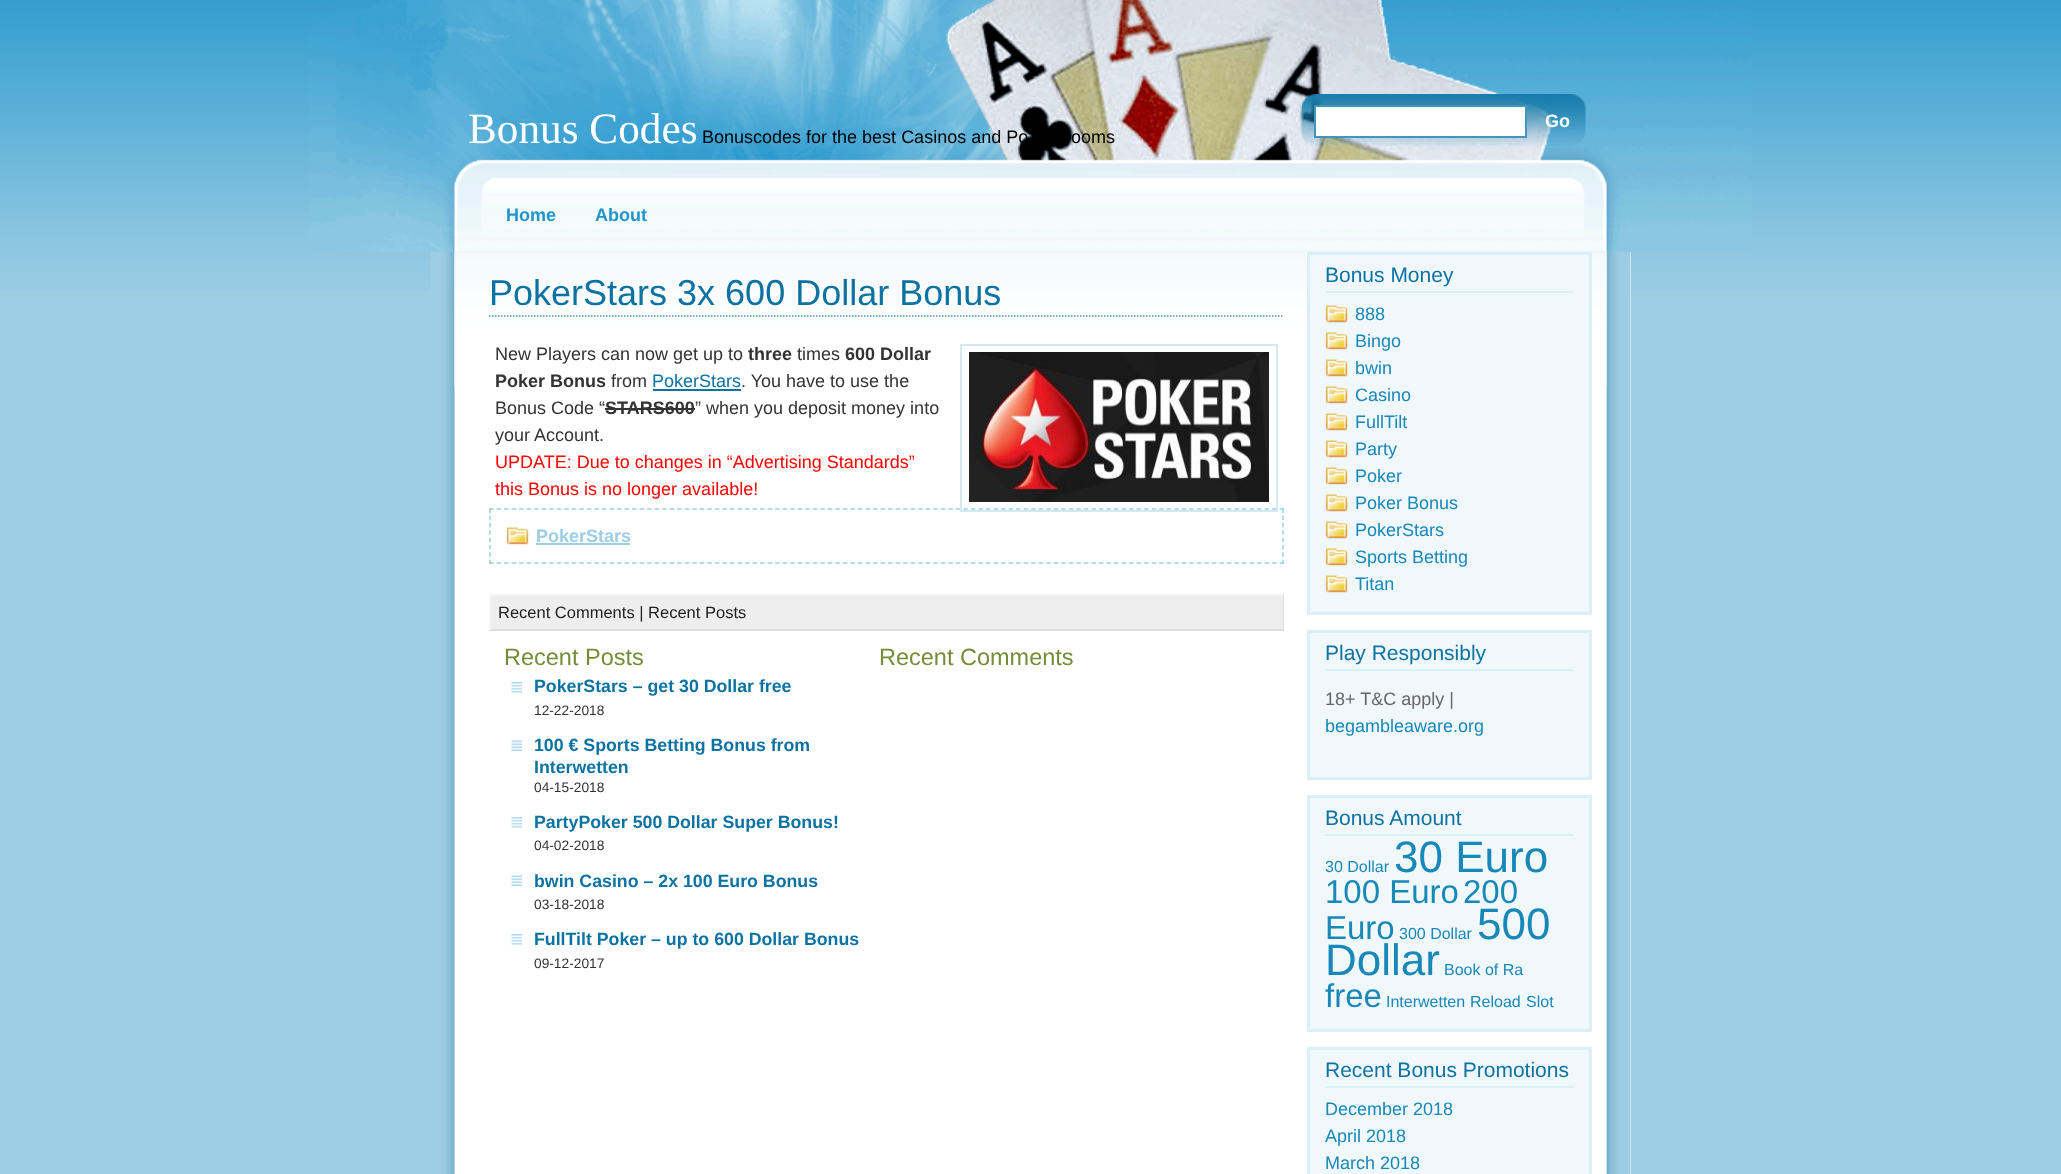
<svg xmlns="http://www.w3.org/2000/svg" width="2061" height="1174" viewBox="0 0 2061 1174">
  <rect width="100%" height="100%" fill="#9ecee4"/>
  <image x="0" y="0" width="2061" height="291" href="img/1.png"/>
  <path d="M1630 252h1v922H1630z" fill="#fff"/>
  <image x="430" y="251" width="1201" height="923" href="img/4.png"/>
  <image x="454" y="251" width="1153" height="136" href="img/5.png"/>
  <image x="309" y="0" width="1443" height="252" href="img/2.png"/>
  <image x="1300" y="94" width="286" height="52" href="img/3.png"/>
  <path d="M1315 106h211v31H1315z" fill="#fff" stroke="#4395bc" stroke-width="2"/>
  <path d="M489 316H1284" fill="none" stroke="#4395bc" stroke-width="1.5" stroke-dasharray="1.5 1.5"/>
  <path d="M489 509H1284" fill="none" stroke="#9ecee4" stroke-width="1.5" stroke-dasharray="4.5 3.03"/>
  <path d="M961 345h316v166H961z" fill="none" stroke="#d3eaf3" stroke-width="2"/>
  <image x="969" y="352" width="300" height="150" href="img/6.png"/>
  <path d="M653 389h88v2H653z" fill="#0c72a2"/>
  <path d="M605 408h90v2H605z" fill="#333"/>
  <path d="M1283 508.5V564" fill="none" stroke="#9ecee4" stroke-width="1.5" stroke-dasharray="4.5 2.79"/>
  <path d="M489 563H1284" fill="none" stroke="#9ecee4" stroke-width="1.5" stroke-dasharray="4.5 3.03"/>
  <path d="M490 508.5V564" fill="none" stroke="#9ecee4" stroke-width="1.5" stroke-dasharray="4.5 2.79"/>
  <image x="506" y="527" width="23" height="18" href="img/7.png"/>
  <path d="M536 543h94v2H536z" fill="#9ecee4"/>
  <path d="M491 596h792v33H491z" fill="#eee"/>
  <path d="M489 594h795v2H489z" fill="#f5f5f5"/>
  <path d="M1283 594h1v36H1283z" fill="#ddd"/>
  <path d="M489 629h795v2H489z" fill="#ddd"/>
  <path d="M489 594h2v36H489z" fill="#f5f5f5"/>
  <image x="511" y="682" width="11" height="11" href="img/8.png"/>
  <image x="511" y="740" width="11" height="11" href="img/9.png"/>
  <image x="511" y="817" width="11" height="11" href="img/8.png"/>
  <image x="511" y="875" width="11" height="11" href="img/9.png"/>
  <image x="511" y="934" width="11" height="11" href="img/8.png"/>
  <path d="M1308.5 253.5h282v360H1308.5z" fill="#f0f8fc" stroke="#dbeff6" stroke-width="3"/>
  <path d="M1325 291h249v2H1325z" fill="#dbeff6"/>
  <image x="1325" y="305" width="23" height="18" href="img/10.png"/>
  <image x="1325" y="332" width="23" height="18" href="img/10.png"/>
  <image x="1325" y="359" width="23" height="18" href="img/10.png"/>
  <image x="1325" y="386" width="23" height="18" href="img/10.png"/>
  <image x="1325" y="413" width="23" height="18" href="img/10.png"/>
  <image x="1325" y="440" width="23" height="18" href="img/10.png"/>
  <image x="1325" y="467" width="23" height="18" href="img/10.png"/>
  <image x="1325" y="494" width="23" height="18" href="img/10.png"/>
  <image x="1325" y="521" width="23" height="18" href="img/10.png"/>
  <image x="1325" y="548" width="23" height="18" href="img/10.png"/>
  <image x="1325" y="575" width="23" height="18" href="img/10.png"/>
  <path d="M1308.5 631.5h282v147H1308.5z" fill="#f0f8fc" stroke="#dbeff6" stroke-width="3"/>
  <path d="M1325 669h249v2H1325z" fill="#dbeff6"/>
  <path d="M1308.5 796.5h282v234H1308.5z" fill="#f0f8fc" stroke="#dbeff6" stroke-width="3"/>
  <path d="M1325 834h249v2H1325z" fill="#dbeff6"/>
  <path d="M1308.5 1048.5h282v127H1308.5z" fill="#f0f8fc" stroke="#dbeff6" stroke-width="3"/>
  <path d="M1325 1086h249v2H1325z" fill="#dbeff6"/>
  <text x="468" y="143" font-family="Liberation Serif" font-size="43.25" fill="#fff">Bonus Codes</text>
  <g font-family="Liberation Sans" font-size="18" fill="#000">
    <text x="702" y="143">Bonuscodes for the best Casinos and Po</text>
    <text x="1071" y="143">ooms</text>
  </g>
  <text x="1545" y="127" font-family="Liberation Sans" font-size="18" font-weight="bold" fill="#fff">Go</text>
  <g font-family="Liberation Sans" font-size="18" font-weight="bold" fill="#2195cb">
    <text x="506" y="221">Home</text>
    <text x="595" y="221">About</text>
  </g>
  <text x="489" y="305" font-family="Liberation Sans" font-size="36" fill="#0c72a2">PokerStars 3x 600 Dollar Bonus</text>
  <text x="495" y="360" font-family="Liberation Sans" font-size="18" fill="#333">New Players can now get up to</text>
  <text x="748" y="360" font-family="Liberation Sans" font-size="18" font-weight="bold" fill="#333">three</text>
  <text x="797" y="360" font-family="Liberation Sans" font-size="18" fill="#333">times</text>
  <g font-family="Liberation Sans" font-size="18" font-weight="bold" fill="#333">
    <text x="845" y="360">600 Dollar</text>
    <text x="495" y="387">Poker Bonus</text>
  </g>
  <text x="611" y="387" font-family="Liberation Sans" font-size="18" fill="#333">from</text>
  <text x="652" y="387" font-family="Liberation Sans" font-size="18" fill="#0c72a2">PokerStars</text>
  <g font-family="Liberation Sans" font-size="18" fill="#333">
    <text x="741" y="387">. You have to use the</text>
    <text x="495" y="414">Bonus Code “</text>
  </g>
  <text x="605" y="414" font-family="Liberation Sans" font-size="18" font-weight="bold" fill="#333">STARS600</text>
  <g font-family="Liberation Sans" font-size="18" fill="#333">
    <text x="695" y="414">” when you deposit money into</text>
    <text x="495" y="441">your Account.</text>
  </g>
  <g font-family="Liberation Sans" font-size="18" fill="#f00">
    <text x="495" y="468">UPDATE: Due to changes in “Advertising Standards”</text>
    <text x="495" y="495">this Bonus is no longer available!</text>
  </g>
  <text x="536" y="542" font-family="Liberation Sans" font-size="18" font-weight="bold" fill="#9ecee4">PokerStars</text>
  <text x="498" y="618" font-family="Liberation Sans" font-size="16.5" fill="#222">Recent Comments | Recent Posts</text>
  <text x="504" y="665" font-family="Liberation Sans" font-size="23.5" fill="#758d38">Recent Posts</text>
  <text x="534" y="692" font-family="Liberation Sans" font-size="17.75" font-weight="bold" fill="#0c72a2">PokerStars – get 30 Dollar free</text>
  <text x="534" y="715" font-family="Liberation Sans" font-size="13.75" fill="#333">12-22-2018</text>
  <g font-family="Liberation Sans" font-size="17.75" font-weight="bold" fill="#0c72a2">
    <text x="534" y="751">100 € Sports Betting Bonus from</text>
    <text x="534" y="773">Interwetten</text>
  </g>
  <text x="534" y="792" font-family="Liberation Sans" font-size="13.75" fill="#333">04-15-2018</text>
  <text x="534" y="828" font-family="Liberation Sans" font-size="17.75" font-weight="bold" fill="#0c72a2">PartyPoker 500 Dollar Super Bonus!</text>
  <text x="534" y="850" font-family="Liberation Sans" font-size="13.75" fill="#333">04-02-2018</text>
  <text x="534" y="887" font-family="Liberation Sans" font-size="17.75" font-weight="bold" fill="#0c72a2">bwin Casino – 2x 100 Euro Bonus</text>
  <text x="534" y="909" font-family="Liberation Sans" font-size="13.75" fill="#333">03-18-2018</text>
  <text x="534" y="945" font-family="Liberation Sans" font-size="17.75" font-weight="bold" fill="#0c72a2">FullTilt Poker – up to 600 Dollar Bonus</text>
  <text x="534" y="968" font-family="Liberation Sans" font-size="13.75" fill="#333">09-12-2017</text>
  <text x="879" y="665" font-family="Liberation Sans" font-size="23.5" fill="#758d38">Recent Comments</text>
  <text x="1325" y="282" font-family="Liberation Sans" font-size="21" fill="#0c72a2">Bonus Money</text>
  <g font-family="Liberation Sans" font-size="18" fill="#1888b8">
    <text x="1355" y="320">888</text>
    <text x="1355" y="347">Bingo</text>
    <text x="1355" y="374">bwin</text>
    <text x="1355" y="401">Casino</text>
    <text x="1355" y="428">FullTilt</text>
    <text x="1355" y="455">Party</text>
    <text x="1355" y="482">Poker</text>
    <text x="1355" y="509">Poker Bonus</text>
    <text x="1355" y="536">PokerStars</text>
    <text x="1355" y="563">Sports Betting</text>
    <text x="1355" y="590">Titan</text>
  </g>
  <text x="1325" y="660" font-family="Liberation Sans" font-size="21" fill="#0c72a2">Play Responsibly</text>
  <text x="1325" y="705" font-family="Liberation Sans" font-size="18" fill="#666">18+ T&amp;C apply |</text>
  <text x="1325" y="732" font-family="Liberation Sans" font-size="18" fill="#1888b8">begambleaware.org</text>
  <text x="1325" y="825" font-family="Liberation Sans" font-size="21" fill="#0c72a2">Bonus Amount</text>
  <text x="1325" y="872" font-family="Liberation Sans" font-size="16" fill="#1888b8">30 Dollar</text>
  <text x="1394" y="872" font-family="Liberation Sans" font-size="44" fill="#1888b8">30 Euro</text>
  <g font-family="Liberation Sans" font-size="33" fill="#1888b8">
    <text x="1325" y="903">100 Euro</text>
    <text x="1463" y="903">200</text>
    <text x="1325" y="939">Euro</text>
  </g>
  <text x="1399" y="939" font-family="Liberation Sans" font-size="16" fill="#1888b8">300 Dollar</text>
  <g font-family="Liberation Sans" font-size="44" fill="#1888b8">
    <text x="1477" y="939">500</text>
    <text x="1325" y="975">Dollar</text>
  </g>
  <text x="1444" y="975" font-family="Liberation Sans" font-size="16" fill="#1888b8">Book of Ra</text>
  <text x="1325" y="1007" font-family="Liberation Sans" font-size="33" fill="#1888b8">free</text>
  <g font-family="Liberation Sans" font-size="16" fill="#1888b8">
    <text x="1386" y="1007">Interwetten</text>
    <text x="1470" y="1007">Reload</text>
    <text x="1526" y="1007">Slot</text>
  </g>
  <text x="1325" y="1077" font-family="Liberation Sans" font-size="21" fill="#0c72a2">Recent Bonus Promotions</text>
  <g font-family="Liberation Sans" font-size="18" fill="#1888b8">
    <text x="1325" y="1115">December 2018</text>
    <text x="1325" y="1142">April 2018</text>
    <text x="1325" y="1169">March 2018</text>
  </g>
</svg>
